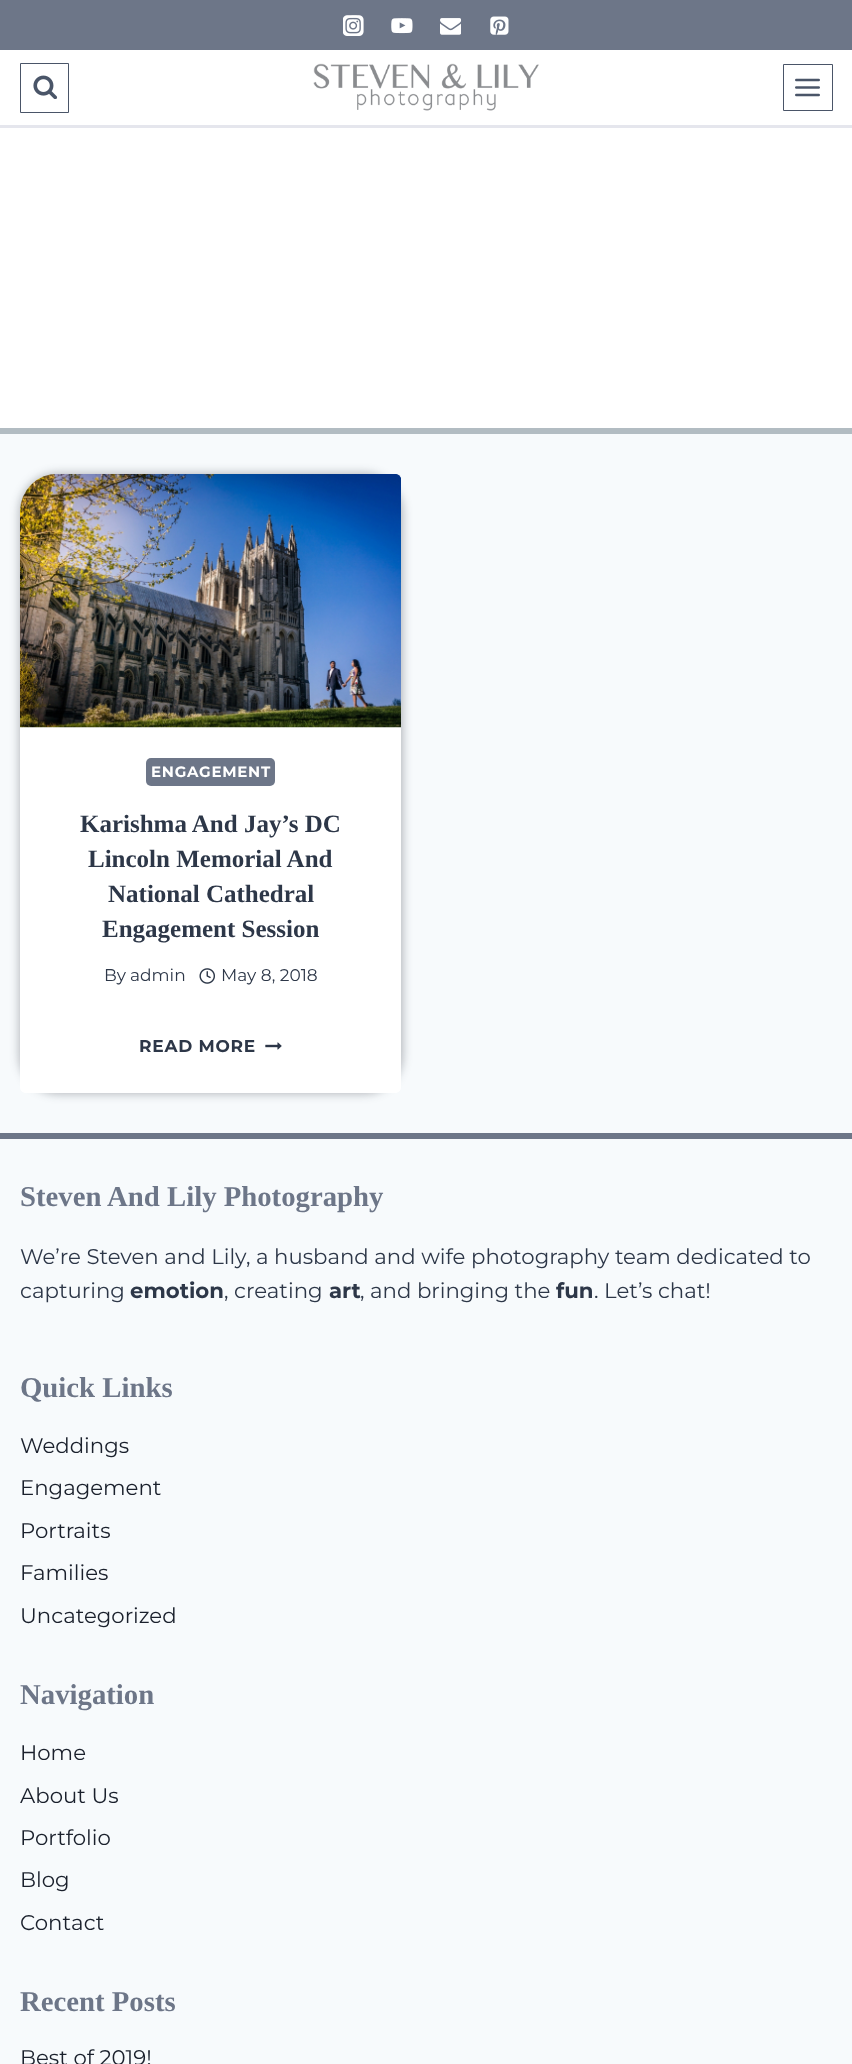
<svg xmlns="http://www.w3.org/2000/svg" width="852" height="2064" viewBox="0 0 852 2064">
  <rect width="100%" height="100%" fill="#f7fafc"/>
  <path d="M0 50h852v75H0z" fill="#fff"/>
  <path d="M0 0h852v50H0z" fill="#6d7688"/>
  <image x="343" y="15" width="21" height="21" href="img/1.png"/>
  <image x="391" y="18" width="22" height="16" href="img/2.png"/>
  <image x="440" y="18" width="21" height="17" href="img/3.png"/>
  <image x="490" y="16" width="19" height="19" href="img/4.png"/>
  <path d="M0 125h852v3H0z" fill="#e5e6ed"/>
  <path d="M20.5 63.5h48v49H20.5z" fill="none" stroke="#4a5568"/>
  <image x="33" y="75" width="25" height="24" href="img/5.png"/>
  <image x="313" y="63" width="226" height="48" href="img/6.png"/>
  <path d="M783.5 64.5h49v46H783.5z" fill="none" stroke="#4a5568"/>
  <image x="795" y="78" width="25" height="19" href="img/7.png"/>
  <path d="M0 128h852v300H0z" fill="#fff"/>
  <path d="M0 428h852v6H0z" fill="#b2bcc2"/>
  <rect x="19" y="473" width="384" height="621" rx="39" fill="#1a202c4d" filter="blur(5px)"/>
  <path d="M58 474H395C398.5 474 401 476.5 401 480V1087C401 1090.5 398.5 1093 395 1093H26C22.5 1093 20 1090.5 20 1087V512C20 491 37 474 58 474Z" fill="#fff"/>
  <image x="20" y="474" width="381" height="254" href="img/8.png"/>
  <rect x="146" y="758" width="129" height="28" rx="5" fill="#6d7688"/>
  <image x="199" y="968" width="16" height="16" href="img/9.png"/>
  <image x="265" y="1042" width="17" height="8" href="img/10.png"/>
  <path d="M0 1133h852v6H0z" fill="#6d7688"/>
  <text x="151" y="777" font-family="Montserrat" font-size="15" font-weight="bold" letter-spacing="0.75" fill="#fff">ENGAGEMENT</text>
  <g font-family="Liberation Serif" font-size="25" font-weight="bold" fill="#2d3748">
    <text x="80" y="832">Karishma And Jay’s DC</text>
    <text x="88" y="867">Lincoln Memorial And</text>
    <text x="108" y="902">National Cathedral</text>
    <text x="102" y="937">Engagement Session</text>
  </g>
  <g font-family="Montserrat" font-size="17" fill="#2d3748">
    <text x="104" y="981">By</text>
    <text x="130" y="981">admin</text>
    <text x="221" y="981">May 8, 2018</text>
  </g>
  <text x="139" y="1052" font-family="Montserrat" font-size="17" font-weight="bold" letter-spacing="0.75" fill="#2d3748">READ MORE</text>
  <text x="20" y="1206" font-family="Liberation Serif" font-size="28.75" font-weight="bold" fill="#6d7688">Steven And Lily Photography</text>
  <g font-family="Montserrat" font-size="21.25" fill="#2d3748">
    <text x="20" y="1264">We’re Steven and Lily, a husband and wife photography team dedicated to</text>
    <text x="20" y="1298">capturing</text>
  </g>
  <text x="130" y="1298" font-family="Montserrat" font-size="21.25" font-weight="bold" fill="#2d3748">emotion</text>
  <text x="224" y="1298" font-family="Montserrat" font-size="21.25" fill="#2d3748">, creating</text>
  <text x="329" y="1298" font-family="Montserrat" font-size="21.25" font-weight="bold" fill="#2d3748">art</text>
  <text x="360" y="1298" font-family="Montserrat" font-size="21.25" fill="#2d3748">, and bringing the</text>
  <text x="556" y="1298" font-family="Montserrat" font-size="21.25" font-weight="bold" fill="#2d3748">fun</text>
  <text x="594" y="1298" font-family="Montserrat" font-size="21.25" fill="#2d3748">. Let’s chat!</text>
  <text x="20" y="1397" font-family="Liberation Serif" font-size="28.75" font-weight="bold" fill="#6d7688">Quick Links</text>
  <g font-family="Montserrat" font-size="21.25" fill="#1a202c">
    <text x="20" y="1453">Weddings</text>
    <text x="20" y="1495">Engagement</text>
    <text x="20" y="1538">Portraits</text>
    <text x="20" y="1580">Families</text>
    <text x="20" y="1623">Uncategorized</text>
  </g>
  <text x="20" y="1704" font-family="Liberation Serif" font-size="28.75" font-weight="bold" fill="#6d7688">Navigation</text>
  <g font-family="Montserrat" font-size="21.25" fill="#1a202c">
    <text x="20" y="1760">Home</text>
    <text x="20" y="1803">About Us</text>
    <text x="20" y="1845">Portfolio</text>
    <text x="20" y="1887">Blog</text>
    <text x="20" y="1930">Contact</text>
  </g>
  <text x="20" y="2011" font-family="Liberation Serif" font-size="28.75" font-weight="bold" fill="#6d7688">Recent Posts</text>
  <text x="20" y="2065" font-family="Montserrat" font-size="21.25" fill="#1a202c">Best of 2019!</text>
</svg>
